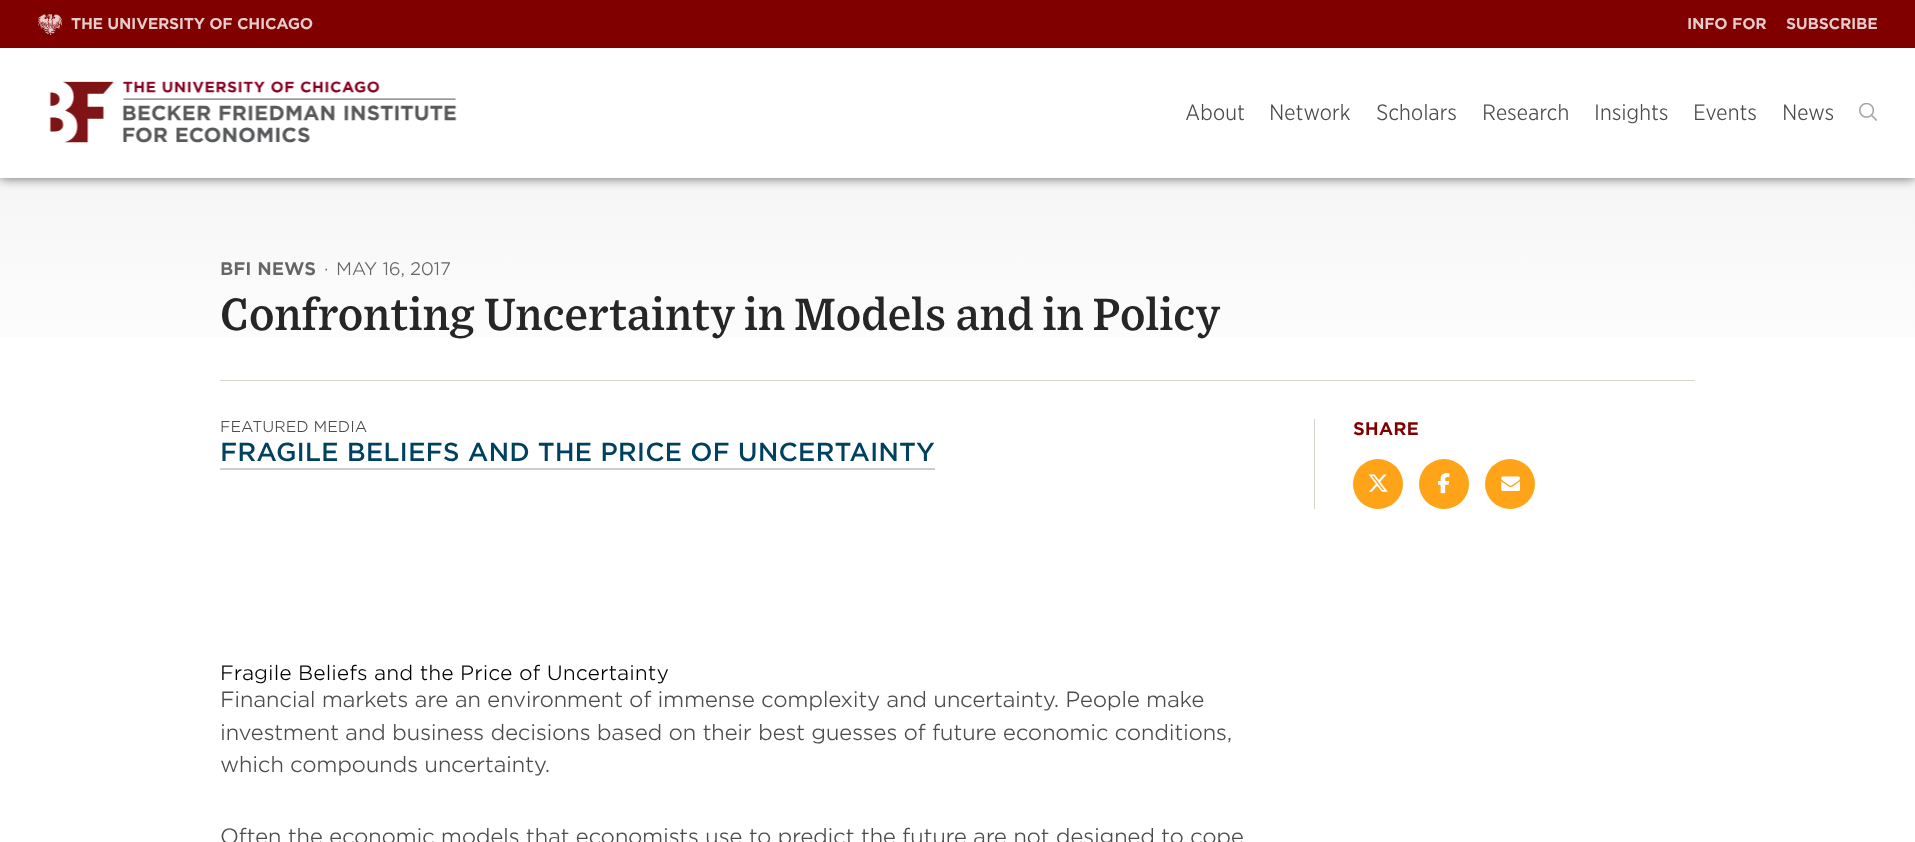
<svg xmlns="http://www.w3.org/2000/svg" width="1915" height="842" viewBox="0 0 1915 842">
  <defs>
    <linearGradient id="g1" gradientUnits="userSpaceOnUse" x1="958" y1="0" x2="958" y2="395"><stop offset="0" stop-color="#eee"/><stop offset="1" stop-color="#fff"/></linearGradient>
  </defs>
  <rect width="100%" height="100%" fill="#fff"/>
  <path d="M0 178h1915v159H0z" fill="url(#g1)"/>
  <path d="M0 0h1915v178H0z" fill="#00000099" filter="blur(6px)"/>
  <path d="M0 48h1915v130H0z" fill="#fff"/>
  <path d="M0 0h1915v48H0z" fill="#800000"/>
  <image x="38" y="14" width="25" height="21" href="img/1.png"/>
  <image x="49" y="81" width="408" height="62" href="img/2.png"/>
  <image x="1859" y="103" width="18" height="18" href="img/3.png"/>
  <path d="M220 380h1475v1H220z" fill="#d6d6ce"/>
  <path d="M220 468h715v2H220z" fill="#ccc"/>
  <path d="M1314 419h1v90H1314z" fill="#d6d6ce"/>
  <circle cx="1378" cy="484" r="25" fill="#ffa319"/>
  <image x="1368" y="474" width="20" height="18" href="img/4.png"/>
  <circle cx="1444" cy="484" r="25" fill="#ffa319"/>
  <image x="1438" y="473" width="12" height="21" href="img/5.png"/>
  <circle cx="1510" cy="484" r="25" fill="#ffa319"/>
  <image x="1501" y="476" width="19" height="15" href="img/6.png"/>
  <text x="71" y="29" font-family="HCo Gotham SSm" font-size="15" font-weight="bold" letter-spacing="-0.3" fill="#e6cccc">THE UNIVERSITY OF CHICAGO</text>
  <g font-family="HCo Gotham SSm" font-size="15" font-weight="bold" letter-spacing="-0.25" fill="#e6cccc">
    <text x="1687" y="29">INFO FOR</text>
    <text x="1786" y="29">SUBSCRIBE</text>
  </g>
  <g font-family="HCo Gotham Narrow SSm" font-size="21.25" font-weight="300" letter-spacing="-0.25" fill="#4c4c4c">
    <text x="1185" y="120">About</text>
    <text x="1269" y="120">Network</text>
    <text x="1376" y="120">Scholars</text>
    <text x="1482" y="120">Research</text>
    <text x="1594" y="120">Insights</text>
    <text x="1693" y="120">Events</text>
    <text x="1782" y="120">News</text>
  </g>
  <text x="220" y="275" font-family="HCo Gotham SSm" font-size="17.5" font-weight="bold" fill="#666">BFI NEWS</text>
  <text x="324" y="275" font-family="HCo Gotham SSm" font-size="17.5" font-weight="300" fill="#666">·</text>
  <text x="336" y="275" font-family="HCo Gotham SSm" font-size="17.5" font-weight="300" letter-spacing="-0.25" fill="#666">MAY 16, 2017</text>
  <text x="220" y="330" font-family="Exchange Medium" font-size="45" font-weight="500" fill="#262626">Confronting Uncertainty in Models and in Policy</text>
  <text x="220" y="432" font-family="HCo Gotham SSm" font-size="15" font-weight="300" fill="#4c4c4c">FEATURED MEDIA</text>
  <text x="220" y="461" font-family="HCo Gotham SSm" font-size="25" font-weight="500" fill="#004161">FRAGILE BELIEFS AND THE PRICE OF UNCERTAINTY</text>
  <text x="220" y="680" font-family="HCo Gotham SSm" font-size="20" font-weight="300" fill="#000">Fragile Beliefs and the Price of Uncertainty</text>
  <g font-family="HCo Gotham SSm" font-size="21.25" font-weight="300" letter-spacing="-0.38" fill="#4c4c4c">
    <text x="220" y="707">Financial markets are an environment of immense complexity and uncertainty. People make</text>
    <text x="220" y="740">investment and business decisions based on their best guesses of future economic conditions,</text>
    <text x="220" y="772">which compounds uncertainty.</text>
    <text x="220" y="844">Often the economic models that economists use to predict the future are not designed to cope</text>
  </g>
  <text x="1353" y="435" font-family="HCo Gotham SSm" font-size="17.5" font-weight="bold" fill="#800000">SHARE</text>
</svg>
